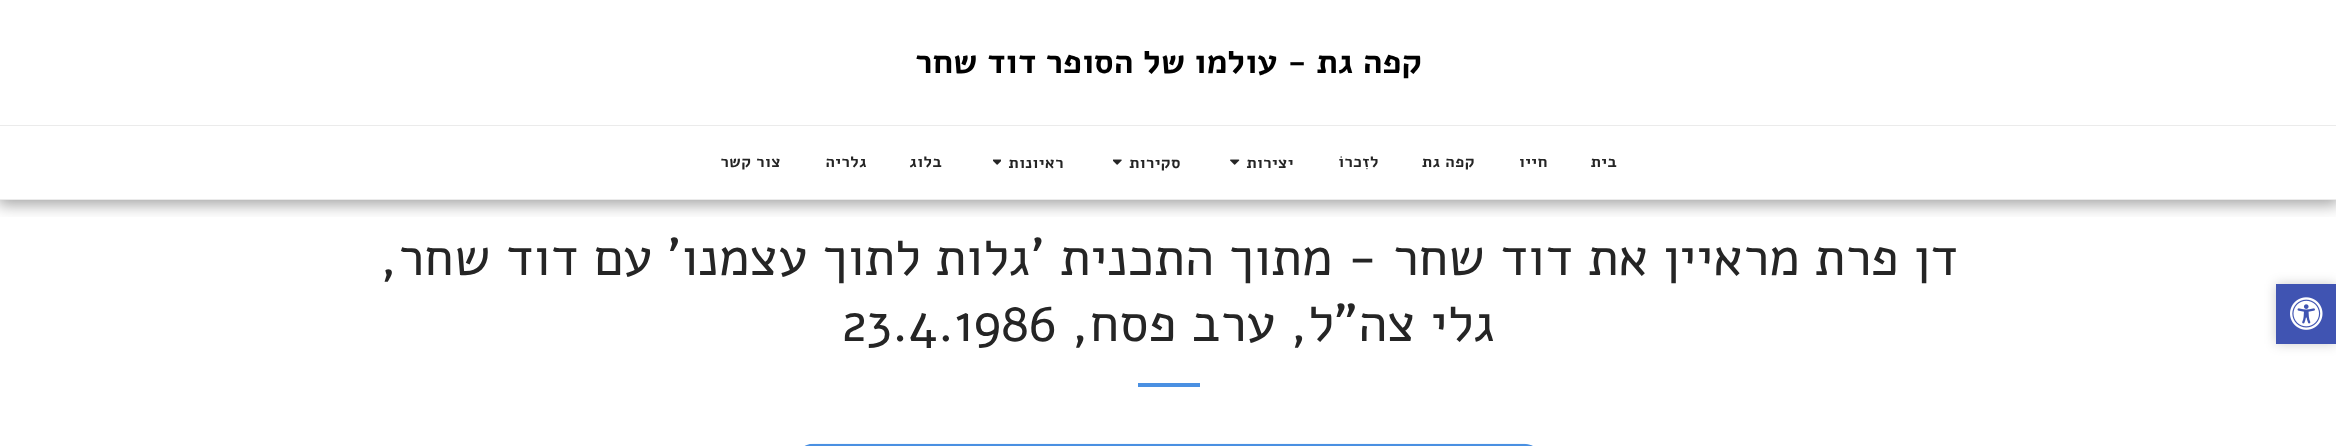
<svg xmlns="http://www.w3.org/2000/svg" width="2336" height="446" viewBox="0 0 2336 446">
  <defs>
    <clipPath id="clip1"><path d="M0 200h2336v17H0z"/></clipPath>
  </defs>
  <rect width="100%" height="100%" fill="#fff"/>
  <path d="M2276 284h60v60H2276z" fill="#00000033" filter="blur(6px)"/>
  <path d="M2276 284h60v60H2276z" fill="#4054b2"/>
  <image x="2290" y="297" width="33" height="33" href="img/1.png"/>
  <g clip-path="url(#clip1)">
    <path d="M-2 0h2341v205H-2z" fill="#00000059" filter="blur(7.5px)"/>
  </g>
  <path d="M0 199h2336v1H0z" fill="#ebebeb"/>
  <path d="M0 125h2336v1H0z" fill="#ebebeb"/>
  <image x="1230" y="159" width="10" height="6" href="img/2.png"/>
  <image x="1113" y="159" width="9" height="6" href="img/3.png"/>
  <image x="993" y="159" width="8" height="6" href="img/4.png"/>
  <path d="M1138 383h62v4H1138z" fill="#4a90e2"/>
  <image x="804" y="443" width="729" height="3" href="img/5.png"/>
  <text x="1422" y="73" font-family="Alef" font-size="33.75" font-weight="bold" direction="rtl" fill="#000">קפה גת - עולמו של הסופר דוד שחר</text>
  <g font-family="Alef" font-size="16" font-weight="bold" letter-spacing="0.5" direction="rtl" fill="#252525">
    <text x="1617" y="167">בית</text>
    <text x="1548" y="167">חייו</text>
    <text x="1475" y="167">קפה גת</text>
    <text x="1379" y="167">לזִכרוֹ</text>
    <text x="1294" y="168">יצירות</text>
    <text x="1181" y="168">סקירות</text>
    <text x="1064" y="168">ראיונות</text>
    <text x="942" y="167">בלוג</text>
    <text x="867" y="167">גלריה</text>
    <text x="781" y="167">צור קשר</text>
  </g>
  <g font-family="Alef" font-size="52.85" direction="rtl" fill="#252525">
    <text x="1958" y="275">דן פרת מראיין את דוד שחר - מתוך התכנית 'גלות לתוך עצמנו' עם דוד שחר,</text>
    <text x="1495" y="341">גלי צה"ל, ערב פסח,</text>
  </g>
  <text x="842" y="341" font-family="Alef" font-size="52.85" fill="#252525">23.4.1986</text>
</svg>
